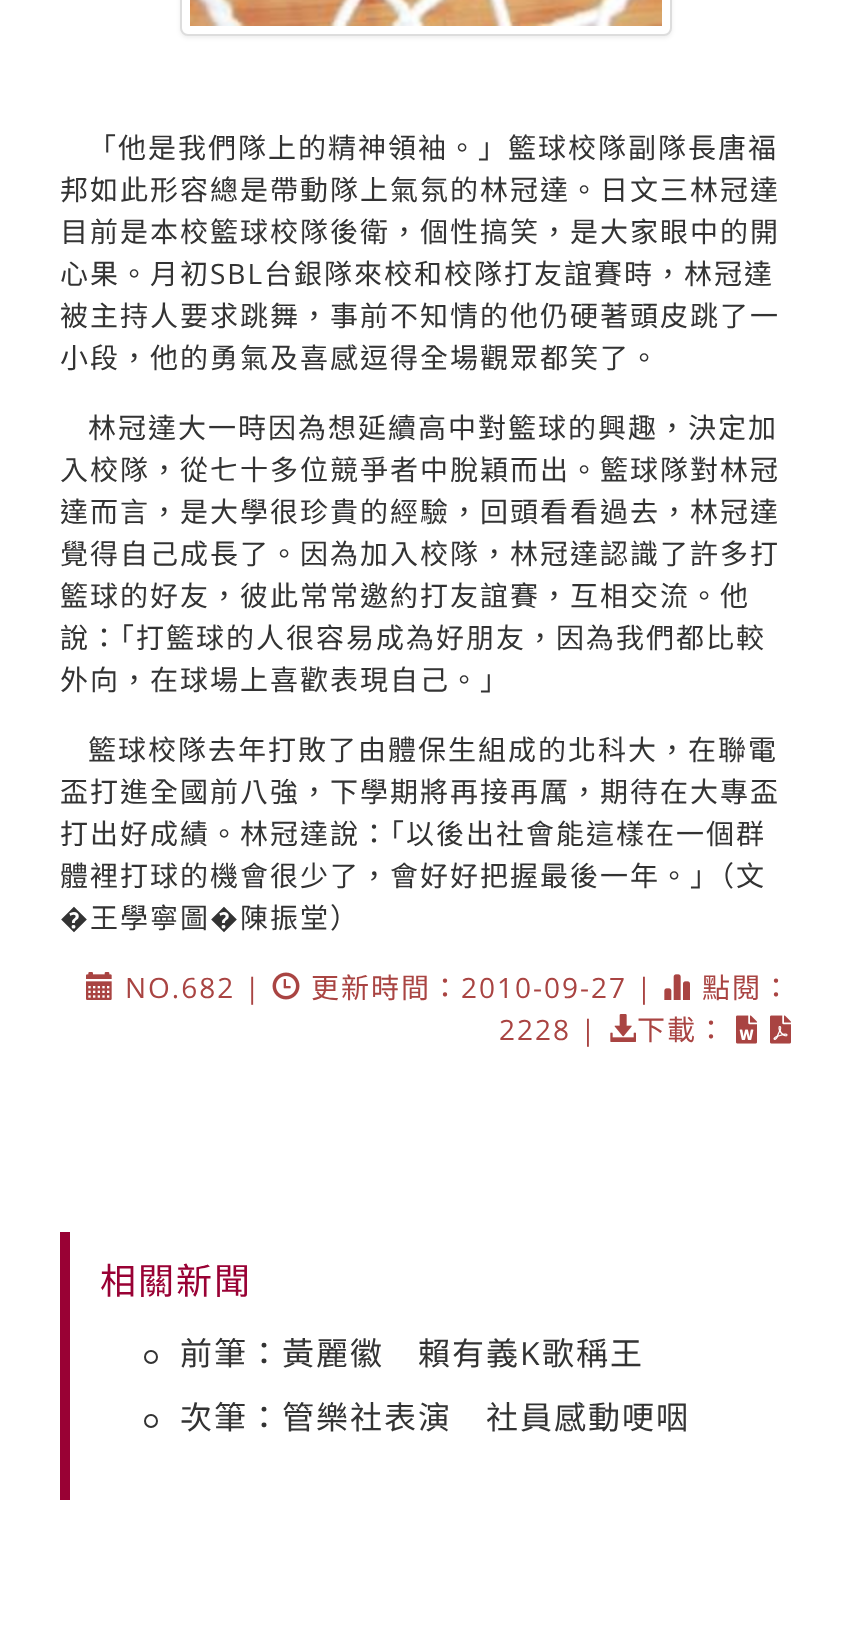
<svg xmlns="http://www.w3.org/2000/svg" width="852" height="1639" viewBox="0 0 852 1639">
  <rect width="100%" height="100%" fill="#fff"/>
  <rect x="180" y="-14" width="492" height="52" rx="8" fill="#00000012" filter="blur(2px)"/>
  <rect x="181" y="-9" width="490" height="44" rx="7" fill="#fff" stroke="#ddd" stroke-width="2"/>
  <image x="190" y="0" width="472" height="26" href="img/1.png"/>
  <image x="86" y="972" width="26" height="28" href="img/2.png"/>
  <image x="272" y="972" width="28" height="28" href="img/3.png"/>
  <image x="664" y="974" width="26" height="26" href="img/4.png"/>
  <image x="610" y="1014" width="26" height="28" href="img/5.png"/>
  <image x="736" y="1015" width="21" height="29" href="img/6.png"/>
  <image x="770" y="1015" width="21" height="29" href="img/7.png"/>
  <path d="M60 1232h10v268H60z" fill="#990134"/>
  <circle cx="151" cy="1357" r="6" fill="none" stroke="#333" stroke-width="2"/>
  <circle cx="151" cy="1421" r="6" fill="none" stroke="#333" stroke-width="2"/>
  <g font-family="Noto Sans CJK TC" font-size="28" letter-spacing="2" fill="#333">
    <text x="88" y="158">「他是我們隊上的精神領袖。」籃球校隊副隊長唐福</text>
    <text x="60" y="200">邦如此形容總是帶動隊上氣氛的林冠達。日文三林冠達</text>
    <text x="60" y="242">目前是本校籃球校隊後衛，個性搞笑，是大家眼中的開</text>
    <text x="60" y="284">心果。月初</text>
  </g>
  <text x="210" y="284" font-family="Open Sans" font-size="28" letter-spacing="2" fill="#333">SBL</text>
  <g font-family="Noto Sans CJK TC" font-size="28" letter-spacing="2" fill="#333">
    <text x="264" y="284">台銀隊來校和校隊打友誼賽時，林冠達</text>
    <text x="60" y="326">被主持人要求跳舞，事前不知情的他仍硬著頭皮跳了一</text>
    <text x="60" y="368">小段，他的勇氣及喜感逗得全場觀眾都笑了。</text>
    <text x="88" y="438">林冠達大一時因為想延續高中對籃球的興趣，決定加</text>
    <text x="60" y="480">入校隊，從七十多位競爭者中脫穎而出。籃球隊對林冠</text>
    <text x="60" y="522">達而言，是大學很珍貴的經驗，回頭看看過去，林冠達</text>
    <text x="60" y="564">覺得自己成長了。因為加入校隊，林冠達認識了許多打</text>
    <text x="60" y="606">籃球的好友，彼此常常邀約打友誼賽，互相交流。他</text>
    <text x="60" y="648">說：「打籃球的人很容易成為好朋友，因為我們都比較</text>
    <text x="60" y="690">外向，在球場上喜歡表現自己。」</text>
    <text x="88" y="760">籃球校隊去年打敗了由體保生組成的北科大，在聯電</text>
    <text x="60" y="802">盃打進全國前八強，下學期將再接再厲，期待在大專盃</text>
    <text x="60" y="844">打出好成績。林冠達說：「以後出社會能這樣在一個群</text>
    <text x="60" y="886">體裡打球的機會很少了，會好好把握最後一年。」（文</text>
  </g>
  <text x="60" y="928" font-family="Open Sans" font-size="28" letter-spacing="2" fill="#333">�</text>
  <text x="90" y="928" font-family="Noto Sans CJK TC" font-size="28" letter-spacing="2" fill="#333">王學寧圖</text>
  <text x="210" y="928" font-family="Open Sans" font-size="28" letter-spacing="2" fill="#333">�</text>
  <text x="240" y="928" font-family="Noto Sans CJK TC" font-size="28" letter-spacing="2" fill="#333">陳振堂）</text>
  <text x="125" y="998" font-family="Open Sans" font-size="28" letter-spacing="2" fill="#a94442">NO.682 |</text>
  <text x="311" y="998" font-family="Noto Sans CJK TC" font-size="28" letter-spacing="2" fill="#a94442">更新時間：</text>
  <text x="461" y="998" font-family="Open Sans" font-size="28" letter-spacing="2" fill="#a94442">2010-09-27 |</text>
  <text x="702" y="998" font-family="Noto Sans CJK TC" font-size="28" letter-spacing="2" fill="#a94442">點閱：</text>
  <text x="499" y="1040" font-family="Open Sans" font-size="28" letter-spacing="2" fill="#a94442">2228 |</text>
  <text x="637" y="1040" font-family="Noto Sans CJK TC" font-size="28" letter-spacing="2" fill="#a94442">下載：</text>
  <text x="100" y="1294" font-family="Noto Sans CJK TC" font-size="36" letter-spacing="2" fill="#990134">相關新聞</text>
  <text x="180" y="1365" font-family="Noto Sans CJK TC" font-size="32" letter-spacing="2" fill="#333">前筆：黃麗徽　賴有義</text>
  <text x="520" y="1365" font-family="Open Sans" font-size="32" letter-spacing="2" fill="#333">K</text>
  <g font-family="Noto Sans CJK TC" font-size="32" letter-spacing="2" fill="#333">
    <text x="542" y="1365">歌稱王</text>
    <text x="180" y="1429">次筆：管樂社表演　社員感動哽咽</text>
  </g>
</svg>
